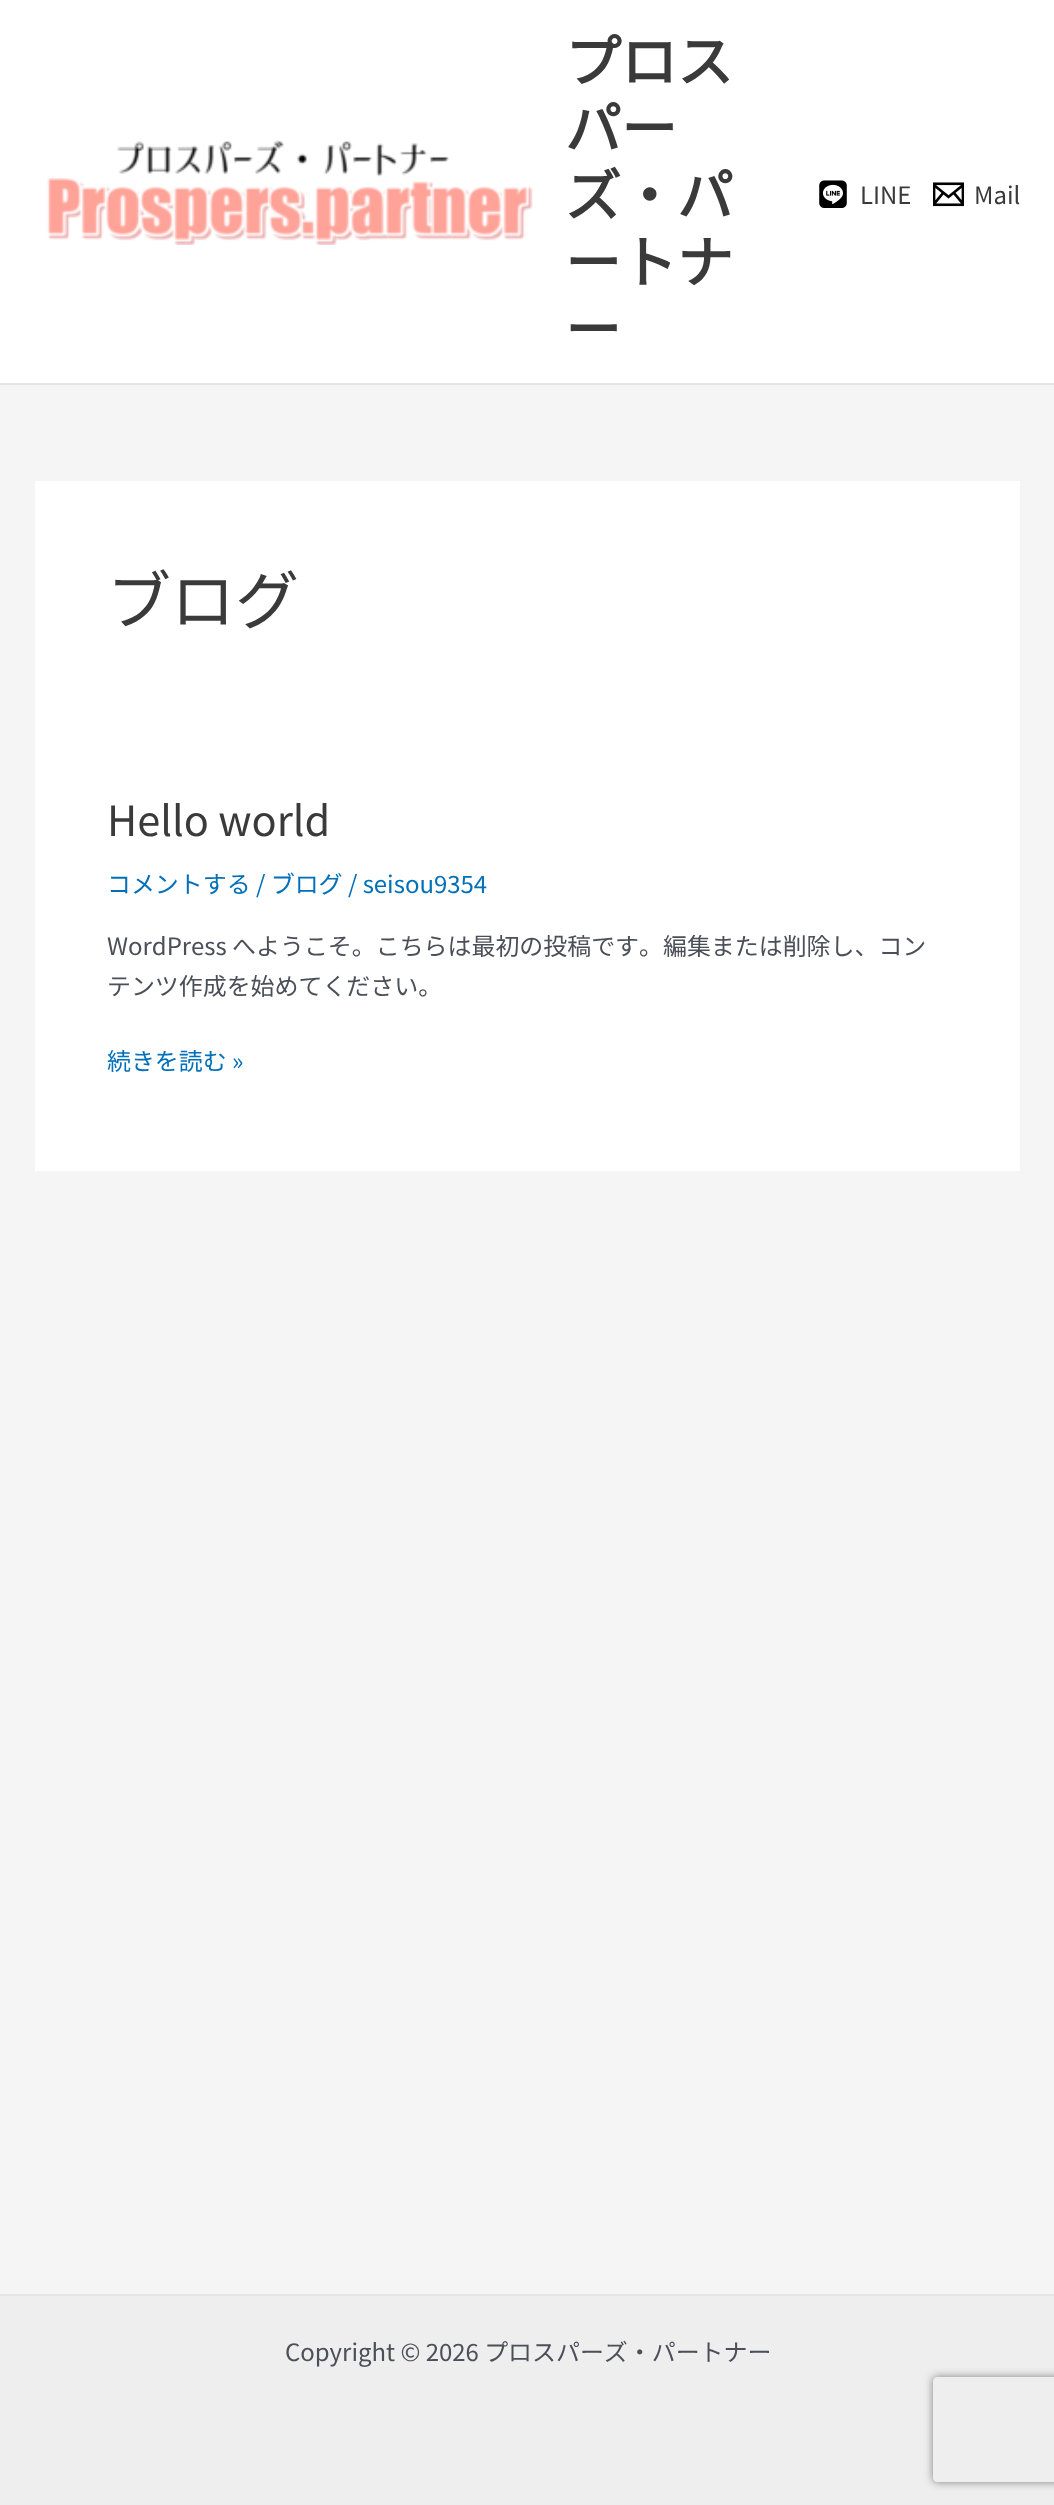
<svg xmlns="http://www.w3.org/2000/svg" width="1054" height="2505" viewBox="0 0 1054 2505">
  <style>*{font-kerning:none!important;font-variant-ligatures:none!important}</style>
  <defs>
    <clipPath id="clip1"><path d="M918 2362H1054V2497H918ZM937 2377H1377C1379 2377 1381 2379 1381 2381V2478C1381 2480 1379 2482 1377 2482H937C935 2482 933 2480 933 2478V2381C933 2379 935 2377 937 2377Z" clip-rule="evenodd"/></clipPath>
  </defs>
  <rect width="100%" height="100%" fill="#f5f5f5"/>
  <path d="M0 0h1054v383H0z" fill="#fff"/>
  <path d="M0 383h1054v2H0z" fill="#e5e5e5"/>
  <image x="47" y="140" width="486" height="105" href="img/1.png"/>
  <image x="819" y="180" width="28" height="28" href="img/2.png"/>
  <image x="933" y="182" width="31" height="25" href="img/3.png"/>
  <path d="M35 481h985v690H35z" fill="#fff"/>
  <path d="M0 2296h1054v209H0z" fill="#eee"/>
  <path d="M0 2294h1054v2H0z" fill="#e5e5e5"/>
  <g clip-path="url(#clip1)">
    <rect x="933" y="2377" width="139" height="105" rx="4" fill="#808080" filter="blur(4.5px)"/>
  </g>
  <g font-family="Noto Sans JP" font-size="56" font-weight="bold" fill="#3a3a3a">
    <text x="565" y="82">プロス</text>
    <text x="565" y="149">パー</text>
    <text x="565" y="216">ズ・パ</text>
    <text x="565" y="283">ートナ</text>
    <text x="565" y="350">ー</text>
  </g>
  <g font-family="Noto Sans JP" font-size="23.95" font-weight="100" fill="#3a3a3a">
    <text x="860" y="204">LINE</text>
    <text x="974" y="204">Mail</text>
  </g>
  <text x="107" y="624" font-family="Noto Sans JP" font-size="64" font-weight="100" fill="#3a3a3a">ブログ</text>
  <text x="107" y="836" font-family="Noto Sans JP" font-size="41.5" font-weight="100" fill="#3a3a3a">Hello world</text>
  <text x="107" y="893" font-family="Noto Sans JP" font-size="23.95" font-weight="100" fill="#0170b9">コメントする / ブログ / seisou9354</text>
  <g font-family="Noto Sans JP" font-size="23.95" font-weight="100" fill="#4b4f58">
    <text x="107" y="955">WordPress へようこそ。こちらは最初の投稿です。編集または削除し、コン</text>
    <text x="107" y="995">テンツ作成を始めてください。</text>
  </g>
  <text x="107" y="1070" font-family="Noto Sans JP" font-size="23.95" font-weight="100" fill="#0170b9">続きを読む »</text>
  <text x="285" y="2361" font-family="Noto Sans JP" font-size="23.95" font-weight="100" fill="#4b4f58">Copyright © 2026 プロスパーズ・パートナー</text>
</svg>
